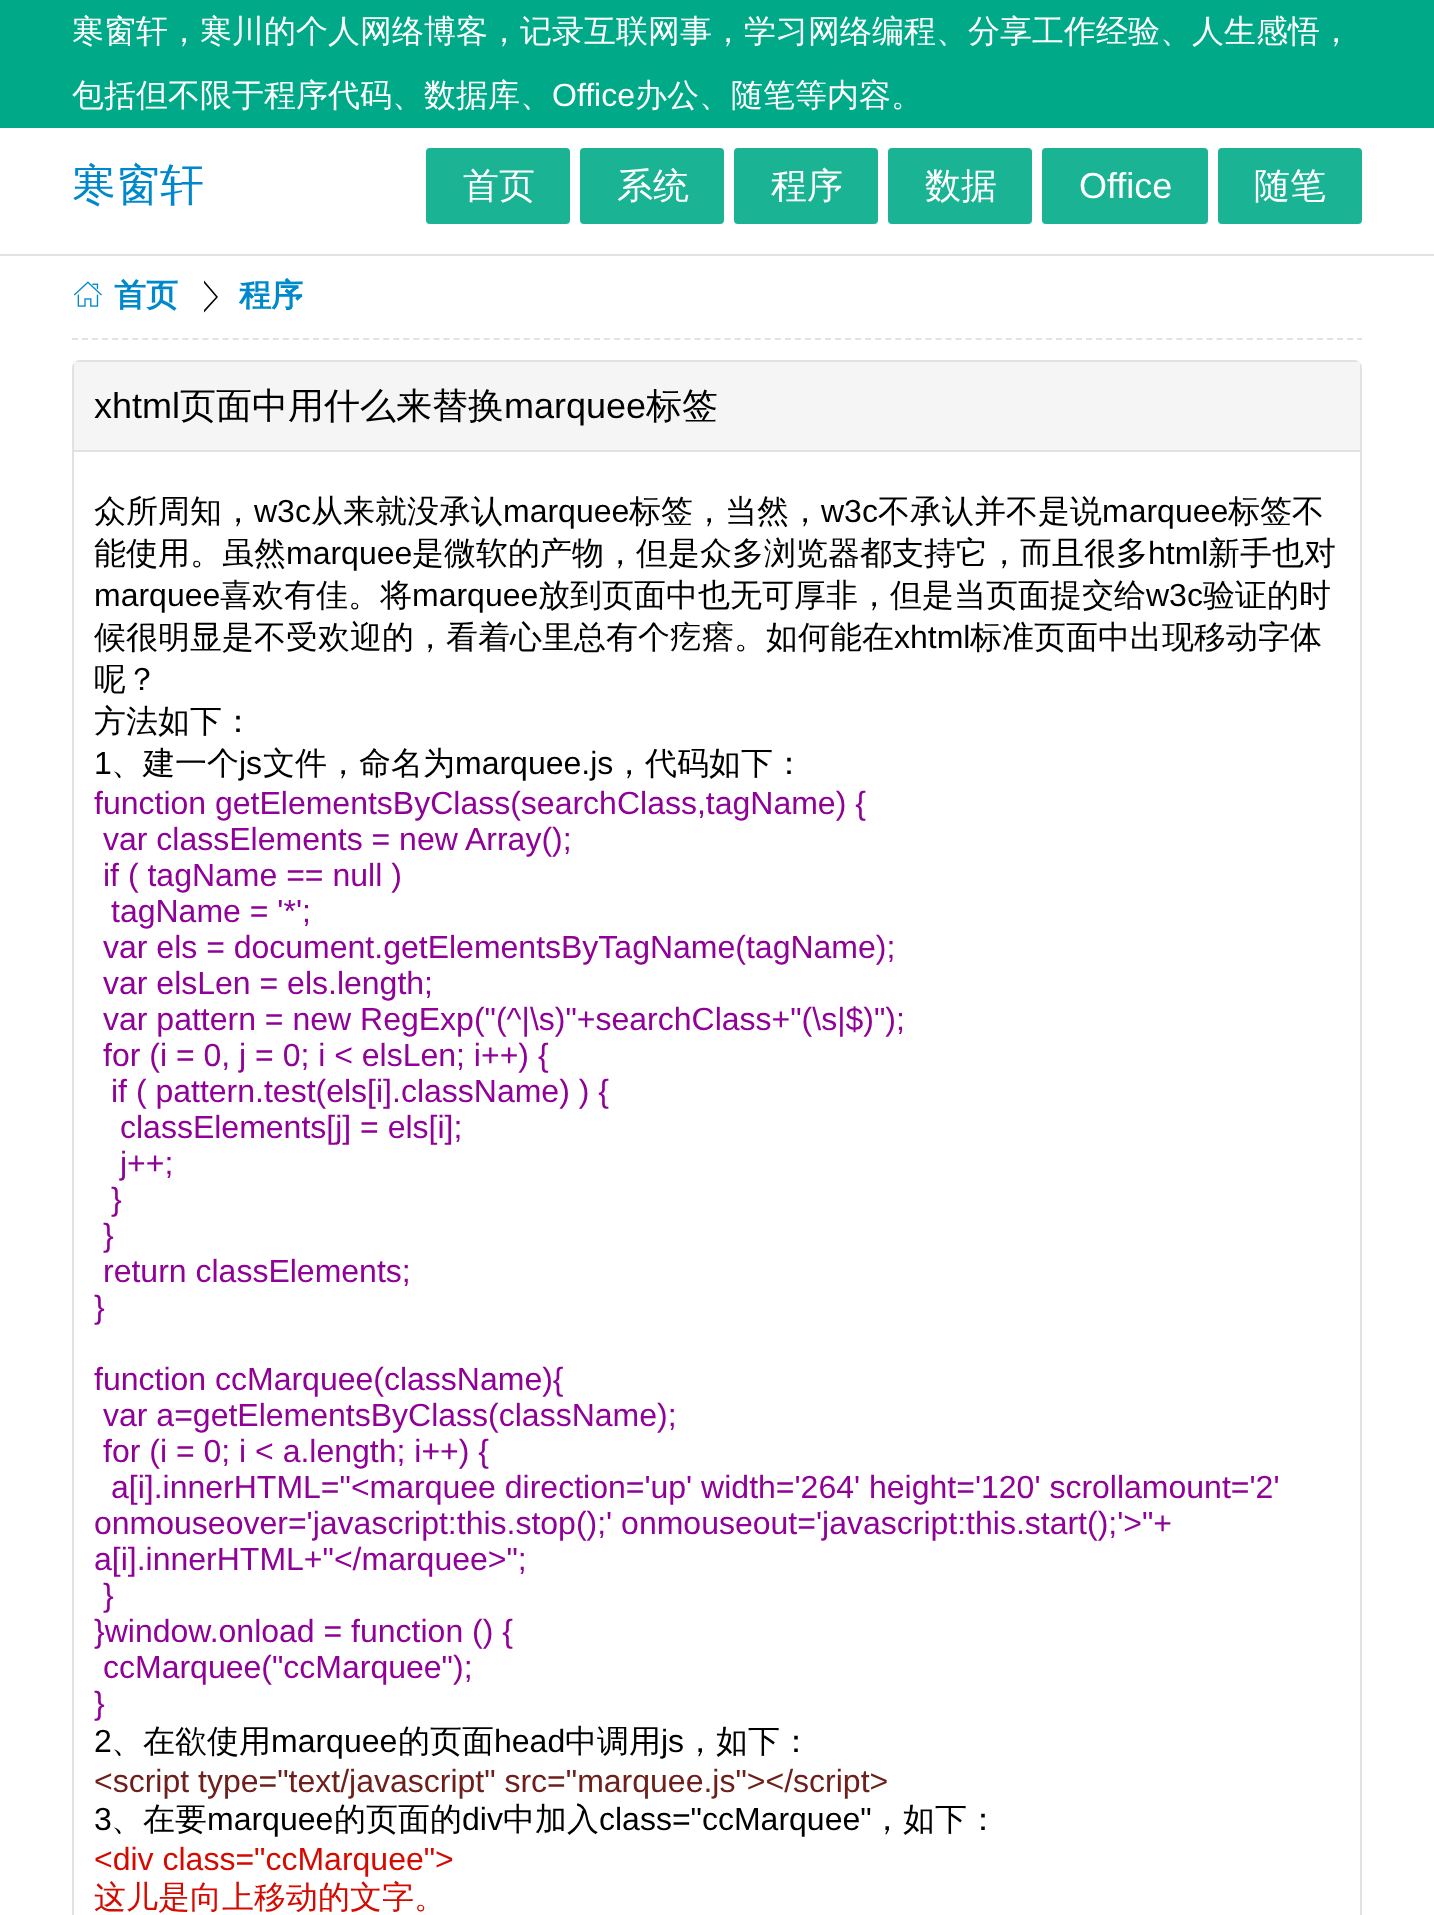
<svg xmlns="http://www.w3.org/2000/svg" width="1434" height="1915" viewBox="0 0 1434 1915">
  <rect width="100%" height="100%" fill="#fff"/>
  <path d="M0 254h1434v2H0z" fill="#e2e2e2"/>
  <path d="M0 0h1434v128H0z" fill="#0a8"/>
  <rect x="426" y="148" width="144" height="76" rx="4" fill="#1ab394"/>
  <rect x="580" y="148" width="144" height="76" rx="4" fill="#1ab394"/>
  <rect x="734" y="148" width="144" height="76" rx="4" fill="#1ab394"/>
  <rect x="888" y="148" width="144" height="76" rx="4" fill="#1ab394"/>
  <rect x="1042" y="148" width="166" height="76" rx="4" fill="#1ab394"/>
  <rect x="1218" y="148" width="144" height="76" rx="4" fill="#1ab394"/>
  <path d="M72 339H1362" fill="none" stroke="#e2e2e2" stroke-width="2" stroke-dasharray="6 4.04"/>
  <image x="74" y="281" width="28" height="26" href="img/1.png"/>
  <path d="M204 280.5V283L216 297L204 310V312.5L218 297Z" fill="#000"/>
  <rect x="73" y="361" width="1288" height="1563" rx="7" fill="none" stroke="#e2e2e2" stroke-width="2"/>
  <path d="M74 362h1286v88H74z" fill="#f5f5f5"/>
  <path d="M74 450h1286v2H74z" fill="#e2e2e2"/>
  <g font-family="WenQuanYi Zen Hei" font-size="32" font-weight="500" fill="#fff">
    <text x="72" y="42">寒窗轩，寒川的个人网络博客，记录互联网事，学习网络编程、分享工作经验、人生感悟，</text>
    <text x="72" y="106">包括但不限于程序代码、数据库、</text>
  </g>
  <text x="552" y="106" font-family="Liberation Sans" font-size="32" fill="#fff">Office</text>
  <text x="635" y="106" font-family="WenQuanYi Zen Hei" font-size="32" font-weight="500" fill="#fff">办公、随笔等内容。</text>
  <text x="72" y="200" font-family="WenQuanYi Zen Hei" font-size="44" font-weight="500" fill="#08c">寒窗轩</text>
  <g font-family="WenQuanYi Zen Hei" font-size="36" font-weight="500" fill="#fff">
    <text x="463" y="198">首页</text>
    <text x="617" y="198">系统</text>
    <text x="771" y="198">程序</text>
    <text x="925" y="198">数据</text>
  </g>
  <text x="1079" y="198" font-family="Liberation Sans" font-size="36" fill="#fff">Office</text>
  <text x="1254" y="198" font-family="WenQuanYi Zen Hei" font-size="36" font-weight="500" fill="#fff">随笔</text>
  <g font-family="WenQuanYi Zen Hei" font-size="32" font-weight="bold" fill="#08c">
    <text x="114" y="306">首页</text>
    <text x="239" y="306">程序</text>
  </g>
  <text x="94" y="418" font-family="Liberation Sans" font-size="36" fill="#000">xhtml</text>
  <text x="180" y="418" font-family="WenQuanYi Zen Hei" font-size="36" font-weight="500" fill="#000">页面中用什么来替换</text>
  <text x="504" y="418" font-family="Liberation Sans" font-size="36" fill="#000">marquee</text>
  <text x="646" y="418" font-family="WenQuanYi Zen Hei" font-size="36" font-weight="500" fill="#000">标签</text>
  <text x="94" y="522" font-family="WenQuanYi Zen Hei" font-size="32" font-weight="500" fill="#000">众所周知，</text>
  <text x="254" y="522" font-family="Liberation Sans" font-size="32" fill="#000">w3c</text>
  <text x="311" y="522" font-family="WenQuanYi Zen Hei" font-size="32" font-weight="500" fill="#000">从来就没承认</text>
  <text x="503" y="522" font-family="Liberation Sans" font-size="32" fill="#000">marquee</text>
  <text x="629" y="522" font-family="WenQuanYi Zen Hei" font-size="32" font-weight="500" fill="#000">标签，当然，</text>
  <text x="821" y="522" font-family="Liberation Sans" font-size="32" fill="#000">w3c</text>
  <text x="878" y="522" font-family="WenQuanYi Zen Hei" font-size="32" font-weight="500" fill="#000">不承认并不是说</text>
  <text x="1102" y="522" font-family="Liberation Sans" font-size="32" fill="#000">marquee</text>
  <g font-family="WenQuanYi Zen Hei" font-size="32" font-weight="500" fill="#000">
    <text x="1228" y="522">标签不</text>
    <text x="94" y="564">能使用。虽然</text>
  </g>
  <text x="286" y="564" font-family="Liberation Sans" font-size="32" fill="#000">marquee</text>
  <text x="412" y="564" font-family="WenQuanYi Zen Hei" font-size="32" font-weight="500" fill="#000">是微软的产物，但是众多浏览器都支持它，而且很多</text>
  <text x="1148" y="564" font-family="Liberation Sans" font-size="32" fill="#000">html</text>
  <text x="1208" y="564" font-family="WenQuanYi Zen Hei" font-size="32" font-weight="500" fill="#000">新手也对</text>
  <text x="94" y="606" font-family="Liberation Sans" font-size="32" fill="#000">marquee</text>
  <text x="220" y="606" font-family="WenQuanYi Zen Hei" font-size="32" font-weight="500" fill="#000">喜欢有佳。将</text>
  <text x="412" y="606" font-family="Liberation Sans" font-size="32" fill="#000">marquee</text>
  <text x="538" y="606" font-family="WenQuanYi Zen Hei" font-size="32" font-weight="500" fill="#000">放到页面中也无可厚非，但是当页面提交给</text>
  <text x="1146" y="606" font-family="Liberation Sans" font-size="32" fill="#000">w3c</text>
  <g font-family="WenQuanYi Zen Hei" font-size="32" font-weight="500" fill="#000">
    <text x="1203" y="606">验证的时</text>
    <text x="94" y="648">候很明显是不受欢迎的，看着心里总有个疙瘩。如何能在</text>
  </g>
  <text x="894" y="648" font-family="Liberation Sans" font-size="32" fill="#000">xhtml</text>
  <g font-family="WenQuanYi Zen Hei" font-size="32" font-weight="500" fill="#000">
    <text x="970" y="648">标准页面中出现移动字体</text>
    <text x="94" y="690">呢？</text>
    <text x="94" y="732">方法如下：</text>
  </g>
  <text x="94" y="774" font-family="Liberation Sans" font-size="32" fill="#000">1</text>
  <text x="111" y="774" font-family="WenQuanYi Zen Hei" font-size="32" font-weight="500" fill="#000">、建一个</text>
  <text x="239" y="774" font-family="Liberation Sans" font-size="32" fill="#000">js</text>
  <text x="263" y="774" font-family="WenQuanYi Zen Hei" font-size="32" font-weight="500" fill="#000">文件，命名为</text>
  <text x="455" y="774" font-family="Liberation Sans" font-size="32" fill="#000">marquee.js</text>
  <text x="613" y="774" font-family="WenQuanYi Zen Hei" font-size="32" font-weight="500" fill="#000">，代码如下：</text>
  <g font-family="Liberation Sans" font-size="32" fill="#8f0197">
    <text x="94" y="814">function getElementsByClass(searchClass,tagName) {</text>
    <text x="103" y="850">var classElements = new Array();</text>
    <text x="103" y="886">if ( tagName == null )</text>
    <text x="111" y="922">tagName = '*';</text>
    <text x="103" y="958">var els = document.getElementsByTagName(tagName);</text>
    <text x="103" y="994">var elsLen = els.length;</text>
    <text x="103" y="1030">var pattern = new RegExp("(^|\s)"+searchClass+"(\s|$)");</text>
    <text x="103" y="1066">for (i = 0, j = 0; i &lt; elsLen; i++) {</text>
    <text x="111" y="1102">if ( pattern.test(els[i].className) ) {</text>
    <text x="120" y="1138">classElements[j] = els[i];</text>
    <text x="120" y="1174">j++;</text>
    <text x="111" y="1210">}</text>
    <text x="103" y="1246">}</text>
    <text x="103" y="1282">return classElements;</text>
    <text x="94" y="1318">}</text>
    <text x="94" y="1390">function ccMarquee(className){</text>
    <text x="103" y="1426">var a=getElementsByClass(className);</text>
    <text x="103" y="1462">for (i = 0; i &lt; a.length; i++) {</text>
    <text x="111" y="1498">a[i].innerHTML="&lt;marquee direction='up' width='264' height='120' scrollamount='2'</text>
    <text x="94" y="1534">onmouseover='javascript:this.stop();' onmouseout='javascript:this.start();'&gt;"+</text>
    <text x="94" y="1570">a[i].innerHTML+"&lt;/marquee&gt;";</text>
    <text x="103" y="1606">}</text>
    <text x="94" y="1642">}window.onload = function () {</text>
    <text x="103" y="1678">ccMarquee("ccMarquee");</text>
    <text x="94" y="1714">}</text>
  </g>
  <text x="94" y="1752" font-family="Liberation Sans" font-size="32" fill="#000">2</text>
  <text x="111" y="1752" font-family="WenQuanYi Zen Hei" font-size="32" font-weight="500" fill="#000">、在欲使用</text>
  <text x="271" y="1752" font-family="Liberation Sans" font-size="32" fill="#000">marquee</text>
  <text x="398" y="1752" font-family="WenQuanYi Zen Hei" font-size="32" font-weight="500" fill="#000">的页面</text>
  <text x="494" y="1752" font-family="Liberation Sans" font-size="32" fill="#000">head</text>
  <text x="565" y="1752" font-family="WenQuanYi Zen Hei" font-size="32" font-weight="500" fill="#000">中调用</text>
  <text x="661" y="1752" font-family="Liberation Sans" font-size="32" fill="#000">js</text>
  <text x="684" y="1752" font-family="WenQuanYi Zen Hei" font-size="32" font-weight="500" fill="#000">，如下：</text>
  <text x="94" y="1792" font-family="Liberation Sans" font-size="32" fill="#6d201b">&lt;script type="text/javascript" src="marquee.js"&gt;&lt;/script&gt;</text>
  <text x="94" y="1830" font-family="Liberation Sans" font-size="32" fill="#000">3</text>
  <text x="111" y="1830" font-family="WenQuanYi Zen Hei" font-size="32" font-weight="500" fill="#000">、在要</text>
  <text x="207" y="1830" font-family="Liberation Sans" font-size="32" fill="#000">marquee</text>
  <text x="334" y="1830" font-family="WenQuanYi Zen Hei" font-size="32" font-weight="500" fill="#000">的页面的</text>
  <text x="462" y="1830" font-family="Liberation Sans" font-size="32" fill="#000">div</text>
  <text x="503" y="1830" font-family="WenQuanYi Zen Hei" font-size="32" font-weight="500" fill="#000">中加入</text>
  <text x="599" y="1830" font-family="Liberation Sans" font-size="32" fill="#000">class="ccMarquee"</text>
  <text x="871" y="1830" font-family="WenQuanYi Zen Hei" font-size="32" font-weight="500" fill="#000">，如下：</text>
  <text x="94" y="1870" font-family="Liberation Sans" font-size="32" fill="#d40a00">&lt;div class="ccMarquee"&gt;</text>
  <text x="94" y="1908" font-family="WenQuanYi Zen Hei" font-size="32" font-weight="500" fill="#d40a00">这儿是向上移动的文字。</text>
</svg>
